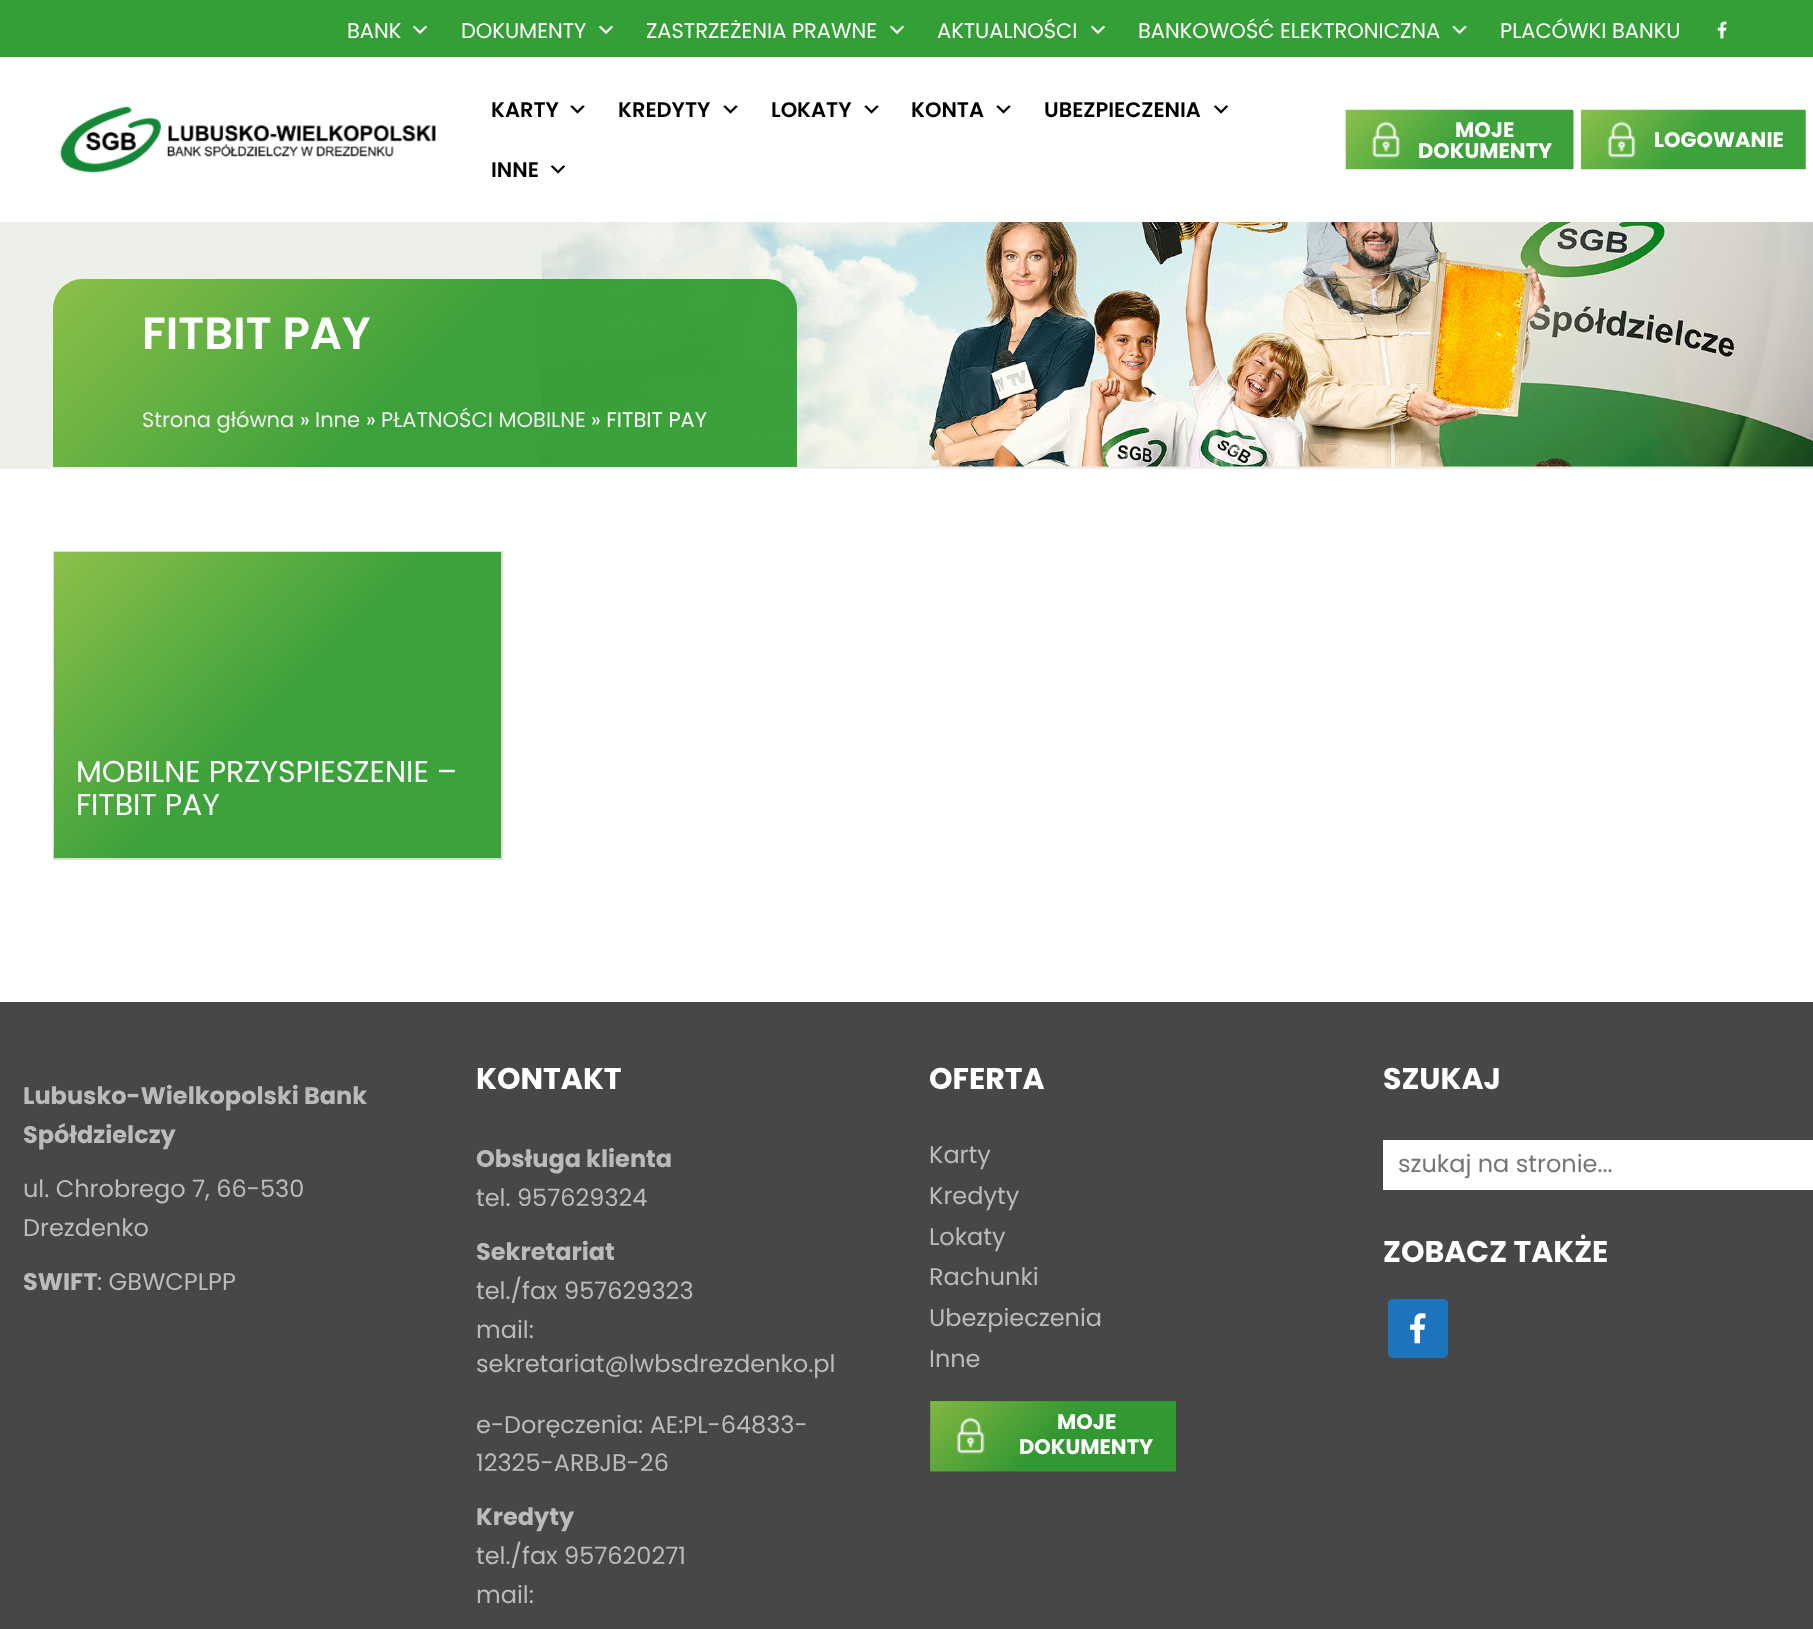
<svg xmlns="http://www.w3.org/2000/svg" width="1813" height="1629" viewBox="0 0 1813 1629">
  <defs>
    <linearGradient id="g1" gradientUnits="userSpaceOnUse" x1="192" y1="140" x2="657" y2="606"><stop offset="0" stop-color="#87bd41" stop-opacity="0.95"/><stop offset="0.5" stop-color="#329d31" stop-opacity="0.95"/><stop offset="1" stop-color="#329d31" stop-opacity="0.95"/></linearGradient>
    <linearGradient id="g2" gradientUnits="userSpaceOnUse" x1="89" y1="517" x2="466" y2="893"><stop offset="0" stop-color="#87bd41" stop-opacity="0.95"/><stop offset="0.5" stop-color="#329d31" stop-opacity="0.95"/><stop offset="1" stop-color="#329d31" stop-opacity="0.95"/></linearGradient>
  </defs>
  <rect width="100%" height="100%" fill="#fff"/>
  <path d="M0 0h1813v57H0z" fill="#349f36"/>
  <image x="412" y="25" width="16" height="9" href="img/1.png"/>
  <image x="598" y="25" width="16" height="9" href="img/1.png"/>
  <image x="889" y="25" width="16" height="9" href="img/1.png"/>
  <image x="1090" y="25" width="16" height="9" href="img/1.png"/>
  <image x="1452" y="25" width="15" height="10" href="img/2.png"/>
  <image x="1717" y="21" width="10" height="18" href="img/3.png"/>
  <image x="60" y="106" width="376" height="67" href="img/4.png"/>
  <image x="570" y="105" width="15" height="9" href="img/5.png"/>
  <image x="723" y="105" width="15" height="9" href="img/5.png"/>
  <image x="864" y="105" width="15" height="9" href="img/5.png"/>
  <image x="996" y="105" width="15" height="9" href="img/5.png"/>
  <image x="1213" y="105" width="16" height="9" href="img/6.png"/>
  <image x="550" y="165" width="16" height="9" href="img/6.png"/>
  <image x="1345" y="109" width="229" height="61" href="img/7.png"/>
  <image x="1581" y="109" width="225" height="61" href="img/8.png"/>
  <path d="M0 222h1813v245H0z" fill="#edefe9"/>
  <image x="541" y="222" width="1272" height="245" href="img/9.png"/>
  <path d="M0 467h1813v2H0z" fill="#eee"/>
  <path d="M83 279H767C783.5 279 797 292.5 797 309V467H53V309C53 292.5 66.5 279 83 279Z" fill="url(#g1)"/>
  <path d="M54 552h448v307H54z" fill="none" stroke="#ddd" stroke-width="2"/>
  <path d="M54 552h447v306H54z" fill="url(#g2)"/>
  <path d="M0 1002h1813v627H0z" fill="#474747"/>
  <image x="930" y="1401" width="246" height="71" href="img/10.png"/>
  <path d="M1383 1140h430v50H1383z" fill="#fff"/>
  <rect x="1388" y="1299" width="60" height="59" rx="5" fill="#1e73be"/>
  <image x="1410" y="1313" width="16" height="31" href="img/11.png"/>
  <g font-family="Poppins" font-size="21" fill="#fff">
    <text x="347" y="38">BANK</text>
    <text x="461" y="38">DOKUMENTY</text>
    <text x="646" y="38">ZASTRZEŻENIA PRAWNE</text>
    <text x="937" y="38">AKTUALNOŚCI</text>
    <text x="1138" y="38">BANKOWOŚĆ ELEKTRONICZNA</text>
    <text x="1500" y="38">PLACÓWKI BANKU</text>
  </g>
  <g font-family="Poppins" font-size="21" font-weight="600" fill="#000">
    <text x="491" y="117">KARTY</text>
    <text x="618" y="117">KREDYTY</text>
    <text x="771" y="117">LOKATY</text>
    <text x="911" y="117">KONTA</text>
    <text x="1044" y="117">UBEZPIECZENIA</text>
    <text x="491" y="177">INNE</text>
  </g>
  <g font-family="Poppins" font-size="21" font-weight="bold" fill="#fff">
    <text x="1455" y="137">MOJE</text>
    <text x="1418" y="158">DOKUMENTY</text>
    <text x="1654" y="147">LOGOWANIE</text>
  </g>
  <text x="142" y="349" font-family="Poppins" font-size="45" font-weight="600" fill="#fff">FITBIT PAY</text>
  <text x="142" y="427" font-family="Poppins" font-size="21" fill="#eee">Strona główna</text>
  <text x="300" y="427" font-family="Poppins" font-size="21" fill="#fff">»</text>
  <text x="315" y="427" font-family="Poppins" font-size="21" fill="#eee">Inne</text>
  <text x="366" y="427" font-family="Poppins" font-size="21" fill="#fff">»</text>
  <text x="381" y="427" font-family="Poppins" font-size="21" fill="#eee">PŁATNOŚCI MOBILNE</text>
  <text x="591" y="427" font-family="Poppins" font-size="21" fill="#fff">» FITBIT PAY</text>
  <g font-family="Poppins" font-size="30" fill="#fff">
    <text x="76" y="782">MOBILNE PRZYSPIESZENIE –</text>
    <text x="76" y="815">FITBIT PAY</text>
  </g>
  <g font-family="Poppins" font-size="24" font-weight="bold" fill="#bbb">
    <text x="23" y="1104">Lubusko-Wielkopolski Bank</text>
    <text x="23" y="1143">Spółdzielczy</text>
  </g>
  <g font-family="Poppins" font-size="24" fill="#bbb">
    <text x="23" y="1197">ul. Chrobrego 7, 66-530</text>
    <text x="23" y="1236">Drezdenko</text>
  </g>
  <text x="23" y="1290" font-family="Poppins" font-size="24" font-weight="bold" fill="#bbb">SWIFT</text>
  <text x="97" y="1290" font-family="Poppins" font-size="24" fill="#bbb">: GBWCPLPP</text>
  <text x="476" y="1089" font-family="Poppins" font-size="30" font-weight="bold" fill="#fff">KONTAKT</text>
  <text x="476" y="1167" font-family="Poppins" font-size="24" font-weight="bold" fill="#bbb">Obsługa klienta</text>
  <text x="476" y="1206" font-family="Poppins" font-size="24" fill="#bbb">tel. 957629324</text>
  <text x="476" y="1260" font-family="Poppins" font-size="24" font-weight="bold" fill="#bbb">Sekretariat</text>
  <g font-family="Poppins" font-size="24" fill="#bbb">
    <text x="476" y="1299">tel./fax 957629323</text>
    <text x="476" y="1338">mail:</text>
    <text x="476" y="1372">sekretariat@lwbsdrezdenko.pl</text>
    <text x="476" y="1433">e-Doręczenia: AE:PL-64833-</text>
    <text x="476" y="1471">12325-ARBJB-26</text>
  </g>
  <text x="476" y="1525" font-family="Poppins" font-size="24" font-weight="bold" fill="#bbb">Kredyty</text>
  <g font-family="Poppins" font-size="24" fill="#bbb">
    <text x="476" y="1564">tel./fax 957620271</text>
    <text x="476" y="1603">mail:</text>
  </g>
  <text x="929" y="1089" font-family="Poppins" font-size="30" font-weight="bold" fill="#fff">OFERTA</text>
  <g font-family="Poppins" font-size="24" fill="#bbb">
    <text x="929" y="1163">Karty</text>
    <text x="929" y="1204">Kredyty</text>
    <text x="929" y="1245">Lokaty</text>
    <text x="929" y="1285">Rachunki</text>
    <text x="929" y="1326">Ubezpieczenia</text>
    <text x="929" y="1367">Inne</text>
  </g>
  <g font-family="Poppins" font-size="21" font-weight="bold" fill="#fff">
    <text x="1057" y="1429">MOJE</text>
    <text x="1019" y="1454">DOKUMENTY</text>
  </g>
  <text x="1383" y="1089" font-family="Poppins" font-size="30" font-weight="bold" fill="#fff">SZUKAJ</text>
  <text x="1398" y="1172" font-family="Poppins" font-size="24" fill="#757575">szukaj na stronie...</text>
  <text x="1383" y="1262" font-family="Poppins" font-size="30" font-weight="bold" fill="#fff">ZOBACZ TAKŻE</text>
</svg>
